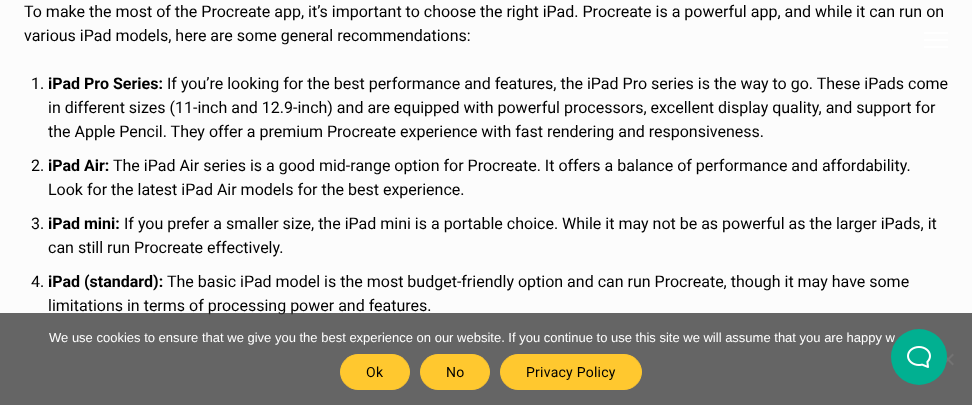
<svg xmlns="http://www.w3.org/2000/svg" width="972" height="405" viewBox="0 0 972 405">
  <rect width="100%" height="100%" fill="#fcfcfc"/>
  <path d="M924 32h24v2H924z" fill="#fff"/>
  <path d="M924 39h24v2H924z" fill="#fff"/>
  <path d="M924 46h24v2H924z" fill="#fff"/>
  <g font-family="Roboto" font-size="16" fill="#000">
    <text x="24" y="17">To make the most of the Procreate app, it’s important to choose the right iPad. Procreate is a powerful app, and while it can run on</text>
    <text x="24" y="41">various iPad models, here are some general recommendations:</text>
    <text x="31" y="89">1.</text>
  </g>
  <text x="48" y="89" font-family="Roboto" font-size="16" font-weight="bold" fill="#000">iPad Pro Series:</text>
  <g font-family="Roboto" font-size="16" fill="#000">
    <text x="167" y="89">If you’re looking for the best performance and features, the iPad Pro series is the way to go. These iPads come</text>
    <text x="48" y="113">in different sizes (11-inch and 12.9-inch) and are equipped with powerful processors, excellent display quality, and support for</text>
    <text x="48" y="137">the Apple Pencil. They offer a premium Procreate experience with fast rendering and responsiveness.</text>
    <text x="31" y="171">2.</text>
  </g>
  <text x="48" y="171" font-family="Roboto" font-size="16" font-weight="bold" fill="#000">iPad Air:</text>
  <g font-family="Roboto" font-size="16" fill="#000">
    <text x="113" y="171">The iPad Air series is a good mid-range option for Procreate. It offers a balance of performance and affordability.</text>
    <text x="48" y="195">Look for the latest iPad Air models for the best experience.</text>
    <text x="31" y="229">3.</text>
  </g>
  <text x="48" y="229" font-family="Roboto" font-size="16" font-weight="bold" fill="#000">iPad mini:</text>
  <g font-family="Roboto" font-size="16" fill="#000">
    <text x="124" y="229">If you prefer a smaller size, the iPad mini is a portable choice. While it may not be as powerful as the larger iPads, it</text>
    <text x="48" y="253">can still run Procreate effectively.</text>
    <text x="31" y="287">4.</text>
  </g>
  <text x="48" y="287" font-family="Roboto" font-size="16" font-weight="bold" fill="#000">iPad (standard):</text>
  <g font-family="Roboto" font-size="16" fill="#000">
    <text x="167" y="287">The basic iPad model is the most budget-friendly option and can run Procreate, though it may have some</text>
    <text x="48" y="311">limitations in terms of processing power and features.</text>
  </g>
  <path d="M0 313h972v92H0z" fill="#333333bf"/>
  <text x="49" y="342" font-family="Liberation Sans" font-size="13" fill="#fff">We use cookies to ensure that we give you the best experience on our website. If you continue to use this site we will assume that you are happy w</text>
  <path d="M952.5 353.5L954 355L943.5 365.5L942 364Z" fill="#737373"/>
  <path d="M942 355L943.5 353.5L954 364L952.5 365.5Z" fill="#737373"/>
  <rect x="340.5" y="354.5" width="69" height="35" rx="17.5" fill="#ffc82f" stroke="#ffc82f"/>
  <text x="366" y="377" font-family="Roboto" font-size="14" letter-spacing="0.25" fill="#000">Ok</text>
  <rect x="420.5" y="354.5" width="69" height="35" rx="17.5" fill="#ffc82f" stroke="#ffc82f"/>
  <text x="446" y="377" font-family="Roboto" font-size="14" letter-spacing="0.25" fill="#000">No</text>
  <rect x="500.5" y="354.5" width="141" height="35" rx="17.5" fill="#ffc82f" stroke="#ffc82f"/>
  <text x="526" y="377" font-family="Roboto" font-size="14" letter-spacing="0.25" fill="#000">Privacy Policy</text>
  <circle cx="919" cy="357" r="28" fill="#01b091"/>
  <image x="907" y="346" width="24" height="22" href="img/1.png"/>
</svg>
